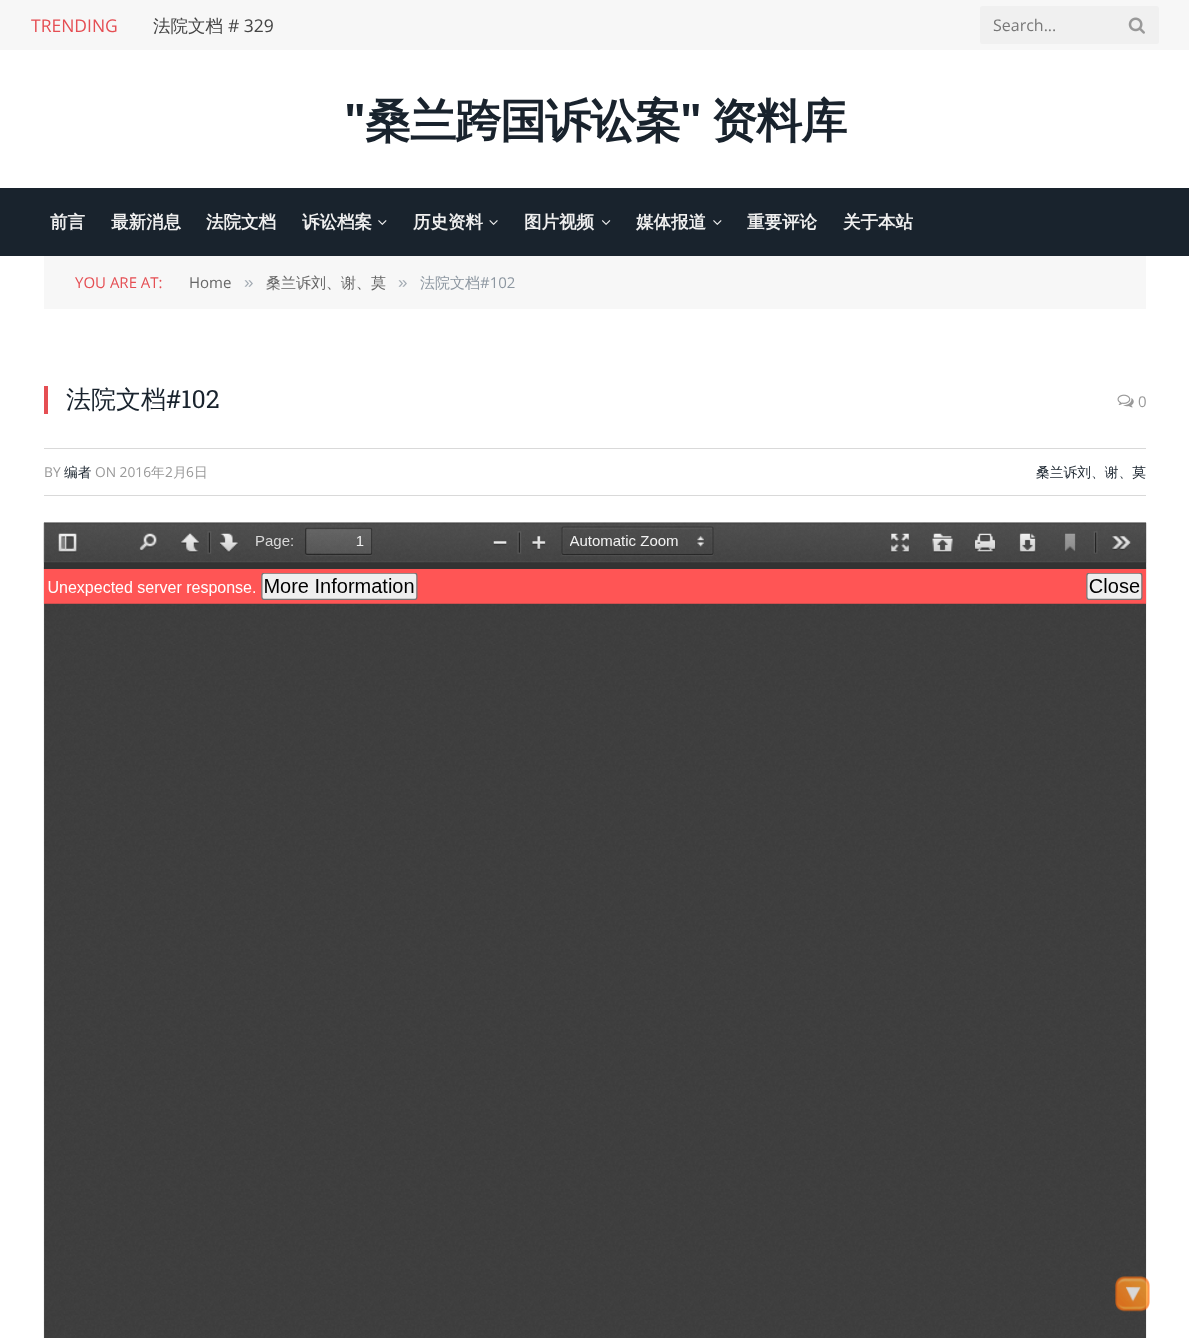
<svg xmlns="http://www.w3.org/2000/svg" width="1189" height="1338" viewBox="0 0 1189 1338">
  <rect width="100%" height="100%" fill="#fff"/>
  <path d="M0 0h1189v50H0z" fill="#f7f7f7"/>
  <rect x="980" y="6" width="179" height="38" rx="2.5" fill="#f0f0f0"/>
  <image x="1128" y="17" width="17" height="17" href="img/1.png"/>
  <path d="M0 188h1189v68H0z" fill="#19232d"/>
  <image x="378" y="220" width="9" height="5" href="img/2.png"/>
  <image x="489" y="220" width="9" height="5" href="img/3.png"/>
  <image x="601" y="220" width="10" height="5" href="img/4.png"/>
  <image x="713" y="220" width="9" height="5" href="img/2.png"/>
  <path d="M44 256h1102v53H44z" fill="#f7f7f7"/>
  <path d="M44 386h4v28H44z" fill="#e54e53"/>
  <image x="1117" y="394" width="17" height="14" href="img/5.png"/>
  <path d="M44 448h1102v1H44z" fill="#d9d9d9"/>
  <path d="M44 495h1102v1H44z" fill="#d9d9d9"/>
  <image x="43" y="522" width="1104" height="816" href="img/6.png"/>
  <image x="1115" y="1276" width="35" height="36" href="img/7.png"/>
  <text x="31" y="32" font-family="Open Sans" font-size="17.5" fill="#e54e53">TRENDING</text>
  <text x="153" y="32" font-family="WenQuanYi Zen Hei" font-size="17.5" font-weight="500" fill="#444">法院文档</text>
  <text x="228" y="32" font-family="Open Sans" font-size="17.5" fill="#444"># 329</text>
  <text x="993" y="31" font-family="Open Sans" font-size="16" fill="#777">Search...</text>
  <text x="344" y="137" font-family="Open Sans" font-size="46.25" font-weight="bold" letter-spacing="-1.25" fill="#19232d">"</text>
  <text x="365" y="137" font-family="WenQuanYi Zen Hei" font-size="46.25" font-weight="bold" letter-spacing="-1.25" fill="#19232d">桑兰跨国诉讼案</text>
  <text x="680" y="137" font-family="Open Sans" font-size="46.25" font-weight="bold" letter-spacing="-1.25" fill="#19232d">"</text>
  <text x="711" y="137" font-family="WenQuanYi Zen Hei" font-size="46.25" font-weight="bold" letter-spacing="-1.25" fill="#19232d">资料库</text>
  <g font-family="WenQuanYi Zen Hei" font-size="17.5" font-weight="bold" fill="#f0f0f0">
    <text x="50" y="228">前言</text>
    <text x="111" y="228">最新消息</text>
    <text x="206" y="228">法院文档</text>
    <text x="302" y="228">诉讼档案</text>
    <text x="413" y="228">历史资料</text>
    <text x="524" y="228">图片视频</text>
    <text x="636" y="228">媒体报道</text>
    <text x="747" y="228">重要评论</text>
    <text x="843" y="228">关于本站</text>
  </g>
  <text x="75" y="288" font-family="Open Sans" font-size="15" fill="#e54e53">YOU ARE AT:</text>
  <text x="189" y="288" font-family="Open Sans" font-size="15" fill="#666">Home</text>
  <text x="244" y="288" font-family="Liberation Sans" font-size="17" fill="#a2aab2">»</text>
  <text x="266" y="288" font-family="WenQuanYi Zen Hei" font-size="15" font-weight="500" fill="#666">桑兰诉刘、谢、莫</text>
  <text x="398" y="288" font-family="Liberation Sans" font-size="17" fill="#a2aab2">»</text>
  <text x="420" y="288" font-family="WenQuanYi Zen Hei" font-size="15" font-weight="500" fill="#8d97a1">法院文档</text>
  <text x="480" y="288" font-family="Open Sans" font-size="15" fill="#8d97a1">#102</text>
  <text x="66" y="408" font-family="WenQuanYi Zen Hei" font-size="25" font-weight="500" fill="#19232d">法院文档</text>
  <text x="166" y="408" font-family="Roboto Slab" font-size="25" fill="#19232d">#102</text>
  <text x="1138" y="407" font-family="Open Sans" font-size="15" fill="#999">0</text>
  <text x="44" y="477" font-family="Open Sans" font-size="13.75" fill="#999">BY</text>
  <text x="64" y="477" font-family="WenQuanYi Zen Hei" font-size="13.75" font-weight="500" fill="#19232d">编者</text>
  <text x="95" y="477" font-family="Open Sans" font-size="13.75" fill="#999">ON 2016</text>
  <text x="151" y="477" font-family="WenQuanYi Zen Hei" font-size="13.75" font-weight="500" fill="#999">年</text>
  <text x="165" y="477" font-family="Open Sans" font-size="13.75" fill="#999">2</text>
  <text x="173" y="477" font-family="WenQuanYi Zen Hei" font-size="13.75" font-weight="500" fill="#999">月</text>
  <text x="186" y="477" font-family="Open Sans" font-size="13.75" fill="#999">6</text>
  <text x="194" y="477" font-family="WenQuanYi Zen Hei" font-size="13.75" font-weight="500" fill="#999">日</text>
  <text x="1036" y="477" font-family="WenQuanYi Zen Hei" font-size="13.75" font-weight="500" fill="#19232d">桑兰诉刘、谢、莫</text>
</svg>
